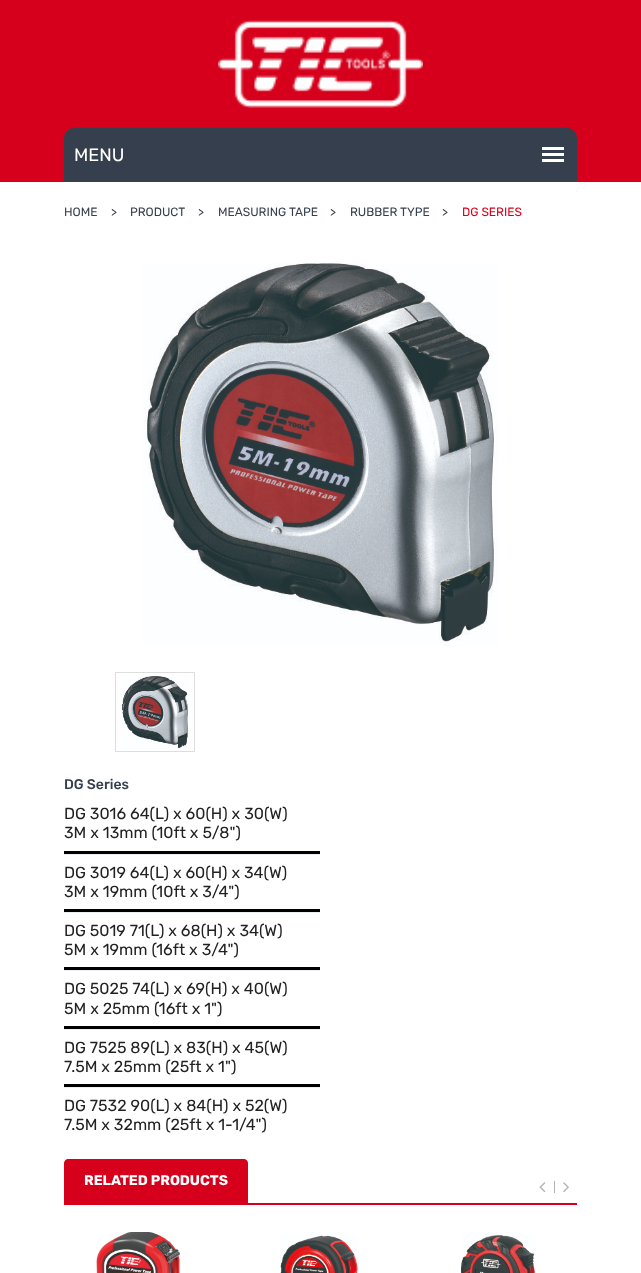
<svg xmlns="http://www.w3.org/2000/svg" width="641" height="1273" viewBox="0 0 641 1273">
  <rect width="100%" height="100%" fill="#fff"/>
  <path d="M0 0h641v182H0z" fill="#d6001c"/>
  <image x="218" y="20" width="205" height="88" href="img/1.png"/>
  <path d="M74 128H567C572.5 128 577 132.5 577 138V182H64V138C64 132.5 68.5 128 74 128Z" fill="#363f4d"/>
  <path d="M542 147h22v3H542z" fill="#fff"/>
  <path d="M542 153h22v3H542z" fill="#fff"/>
  <path d="M542 159h22v3H542z" fill="#fff"/>
  <image x="143" y="263" width="356" height="383" href="img/2.png"/>
  <path d="M115.5 672.5h79v79H115.5z" fill="none" stroke="#ddd"/>
  <image x="121" y="676" width="68" height="73" href="img/3.png"/>
  <path d="M64 851h256v3H64z" fill="#000"/>
  <path d="M64 854h256v1H64z" fill="#eceff8"/>
  <path d="M64 909h256v3H64z" fill="#000"/>
  <path d="M64 912h256v1H64z" fill="#eceff8"/>
  <path d="M64 967h256v3H64z" fill="#000"/>
  <path d="M64 970h256v1H64z" fill="#eceff8"/>
  <path d="M64 1026h256v3H64z" fill="#000"/>
  <path d="M64 1029h256v1H64z" fill="#eceff8"/>
  <path d="M64 1084h256v3H64z" fill="#000"/>
  <path d="M64 1087h256v1H64z" fill="#eceff8"/>
  <path d="M64 1203h513v2H64z" fill="#d6001c"/>
  <path d="M68 1159H244C246 1159 248 1161 248 1163V1203H64V1163C64 1161 66 1159 68 1159Z" fill="#d6001c"/>
  <image x="539" y="1182" width="7" height="11" href="img/4.png"/>
  <path d="M554 1181h1v12H554z" fill="#b2b2b2"/>
  <image x="563" y="1182" width="6" height="11" href="img/5.png"/>
  <image x="96" y="1232" width="84" height="41" href="img/6.png"/>
  <image x="280" y="1235" width="78" height="38" href="img/7.png"/>
  <image x="461" y="1235" width="75" height="38" href="img/8.png"/>
  <text x="74" y="161" font-family="Rubik" font-size="18" fill="#fff">MENU</text>
  <g font-family="Rubik" font-size="12" fill="#363f4d">
    <text x="64" y="216">HOME</text>
    <text x="111" y="216">&gt;</text>
    <text x="130" y="216">PRODUCT</text>
    <text x="198" y="216">&gt;</text>
    <text x="218" y="216">MEASURING TAPE</text>
    <text x="330" y="216">&gt;</text>
    <text x="350" y="216">RUBBER TYPE</text>
    <text x="442" y="216">&gt;</text>
  </g>
  <text x="462" y="216" font-family="Rubik" font-size="12" fill="#d6001c">DG SERIES</text>
  <text x="64" y="789" font-family="Rubik" font-size="14" font-weight="500" fill="#363f4d">DG Series</text>
  <g font-family="Rubik" font-size="16" fill="#222">
    <text x="64" y="819">DG 3016 64(L) x 60(H) x 30(W)</text>
    <text x="64" y="838">3M x 13mm (10ft x 5/8")</text>
    <text x="64" y="878">DG 3019 64(L) x 60(H) x 34(W)</text>
    <text x="64" y="897">3M x 19mm (10ft x 3/4")</text>
    <text x="64" y="936">DG 5019 71(L) x 68(H) x 34(W)</text>
    <text x="64" y="955">5M x 19mm (16ft x 3/4")</text>
    <text x="64" y="994">DG 5025 74(L) x 69(H) x 40(W)</text>
    <text x="64" y="1014">5M x 25mm (16ft x 1")</text>
    <text x="64" y="1053">DG 7525 89(L) x 83(H) x 45(W)</text>
    <text x="64" y="1072">7.5M x 25mm (25ft x 1")</text>
    <text x="64" y="1111">DG 7532 90(L) x 84(H) x 52(W)</text>
    <text x="64" y="1130">7.5M x 32mm (25ft x 1-1/4")</text>
  </g>
  <text x="84" y="1185" font-family="Rubik" font-size="14" font-weight="bold" fill="#fff">RELATED PRODUCTS</text>
</svg>
